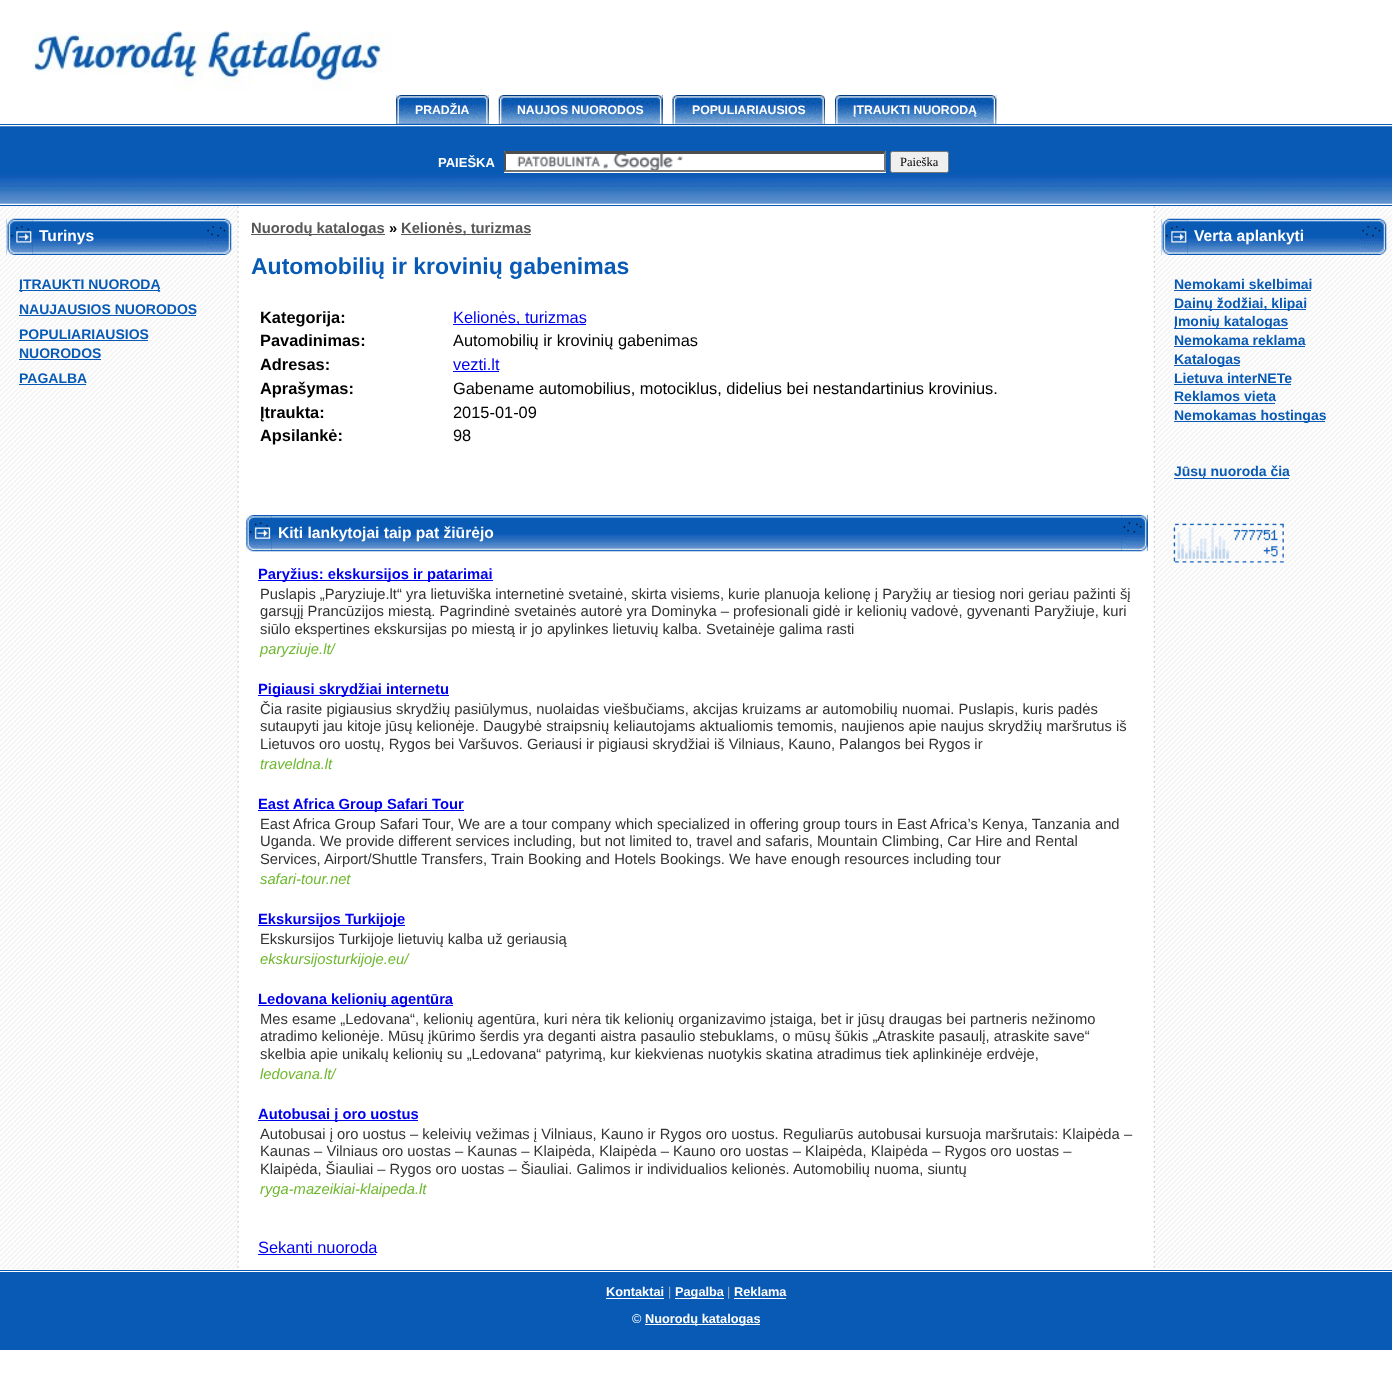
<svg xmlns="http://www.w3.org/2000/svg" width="1392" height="1378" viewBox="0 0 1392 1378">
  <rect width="100%" height="100%" fill="#fff"/>
  <image x="32" y="31" width="360" height="60" href="img/1.png"/>
  <path d="M0 124h1392v1H0z" fill="#085ab5"/>
  <path d="M396 95h93v29H396z" fill="#085ab5"/>
  <image x="396" y="95" width="93" height="29" href="img/2.png"/>
  <image x="481" y="95" width="8" height="29" href="img/3.png"/>
  <path d="M499 95h164v29H499z" fill="#085ab5"/>
  <image x="498" y="95" width="165" height="29" href="img/4.png"/>
  <image x="655" y="95" width="8" height="29" href="img/5.png"/>
  <image x="672" y="95" width="153" height="29" href="img/6.png"/>
  <image x="817" y="95" width="8" height="29" href="img/7.png"/>
  <image x="835" y="95" width="162" height="29" href="img/8.png"/>
  <image x="988" y="95" width="9" height="29" href="img/9.png"/>
  <image x="0" y="126" width="1392" height="78" href="img/10.png"/>
  <path d="M504 151h382v22H504z" fill="#fff"/>
  <image x="517" y="154" width="166" height="16" href="img/11.png"/>
  <path d="M504 151H886L884 154H506Z" fill="#4f4f4f"/>
  <path d="M886 151V172.5L884 170V154Z" fill="#767676"/>
  <path d="M886 172H504L506 170H884Z" fill="#767676"/>
  <path d="M504 172.5V151L506 154V170Z" fill="#4f4f4f"/>
  <rect x="890.5" y="151.5" width="58" height="21" rx="2" fill="#efefef" stroke="#767676"/>
  <path d="M0 205h1392v1H0z" fill="#085ab5"/>
  <path d="M0 1270h1392v1H0z" fill="#085ab5"/>
  <path d="M0 206h238v1063H0z" fill="#efefef"/>
  <image x="0" y="206" width="238" height="1063" href="img/12.png"/>
  <path d="M6 219h199v36H6z" fill="#085ab5"/>
  <image x="205" y="218" width="27" height="37" href="img/13.png"/>
  <image x="6" y="218" width="27" height="37" href="img/14.png"/>
  <image x="32" y="218" width="173" height="36" href="img/15.png"/>
  <path d="M19 290h141v1H19z" fill="#085ab5"/>
  <path d="M19 315h177v1H19z" fill="#085ab5"/>
  <path d="M19 340h129v1H19z" fill="#085ab5"/>
  <path d="M19 359h82v1H19z" fill="#085ab5"/>
  <path d="M19 384h67v1H19z" fill="#085ab5"/>
  <image x="237" y="206" width="2" height="1063" href="img/16.png"/>
  <path d="M251 234h134v1H251z" fill="#575757"/>
  <path d="M401 234h130v1H401z" fill="#575757"/>
  <path d="M453 324h133v1H453z" fill="#00e"/>
  <path d="M453 371h46v1H453z" fill="#00e"/>
  <path d="M1121 515h27v36H1121z" fill="#085ab5"/>
  <image x="1121" y="515" width="27" height="37" href="img/17.png"/>
  <image x="245" y="515" width="27" height="37" href="img/18.png"/>
  <path d="M271 515h850v36H271z" fill="#085ab5"/>
  <image x="271" y="516" width="851" height="36" href="img/19.png"/>
  <path d="M258 580h235v1H258z" fill="#00e"/>
  <path d="M258 695h191v1H258z" fill="#00e"/>
  <path d="M258 810h206v1H258z" fill="#00e"/>
  <path d="M258 925h147v1H258z" fill="#00e"/>
  <path d="M258 1005h195v1H258z" fill="#00e"/>
  <path d="M258 1120h160v1H258z" fill="#00e"/>
  <path d="M258 1254h118v1H258z" fill="#00e"/>
  <image x="1153" y="206" width="2" height="1062" href="img/20.png"/>
  <image x="1155" y="206" width="237" height="1063" href="img/21.png"/>
  <path d="M1161 219h199v36H1161z" fill="#085ab5"/>
  <image x="1360" y="218" width="27" height="37" href="img/13.png"/>
  <image x="1161" y="218" width="27" height="37" href="img/22.png"/>
  <image x="1187" y="218" width="173" height="36" href="img/23.png"/>
  <path d="M1174 290h137v1H1174z" fill="#085ab5"/>
  <path d="M1174 309h132v1H1174z" fill="#085ab5"/>
  <path d="M1174 328h114v1H1174z" fill="#085ab5"/>
  <path d="M1174 346h131v1H1174z" fill="#085ab5"/>
  <path d="M1174 365h66v1H1174z" fill="#085ab5"/>
  <path d="M1174 384h117v1H1174z" fill="#085ab5"/>
  <path d="M1174 403h101v1H1174z" fill="#085ab5"/>
  <path d="M1174 421h151v1H1174z" fill="#085ab5"/>
  <path d="M1174 478h115v1H1174z" fill="#085ab5"/>
  <image x="1173" y="523" width="111" height="40" href="img/24.png"/>
  <path d="M0 1272h1392v78H0z" fill="#085ab5"/>
  <path d="M606 1298h58v1H606z" fill="#fff"/>
  <path d="M675 1298h49v1H675z" fill="#fff"/>
  <path d="M734 1298h52v1H734z" fill="#fff"/>
  <path d="M645 1324h115v1H645z" fill="#fff"/>
  <g font-family="Liberation Sans" font-size="12.25" font-weight="bold" fill="#fff">
    <text x="415" y="114">PRADŽIA</text>
    <text x="517" y="114">NAUJOS NUORODOS</text>
    <text x="692" y="114">POPULIARIAUSIOS</text>
    <text x="853" y="114">ĮTRAUKTI NUORODĄ</text>
  </g>
  <text x="438" y="167" font-family="Liberation Sans" font-size="13" font-weight="bold" fill="#fff">PAIEŠKA</text>
  <text x="900" y="166" font-family="Liberation Serif" font-size="12.5" fill="#000">Paieška</text>
  <text x="39" y="241" font-family="Liberation Sans" font-size="15.6" font-weight="bold" fill="#fff">Turinys</text>
  <g font-family="Liberation Sans" font-size="14" font-weight="bold" fill="#085ab5">
    <text x="19" y="289">ĮTRAUKTI NUORODĄ</text>
    <text x="19" y="314">NAUJAUSIOS NUORODOS</text>
    <text x="19" y="339">POPULIARIAUSIOS</text>
    <text x="19" y="358">NUORODOS</text>
    <text x="19" y="383">PAGALBA</text>
  </g>
  <text x="251" y="233" font-family="Liberation Sans" font-size="14.75" font-weight="bold" fill="#575757">Nuorodų katalogas</text>
  <text x="389" y="233" font-family="Liberation Sans" font-size="14.75" font-weight="bold" fill="#000">»</text>
  <text x="401" y="233" font-family="Liberation Sans" font-size="14.75" font-weight="bold" fill="#575757">Kelionės, turizmas</text>
  <text x="251" y="274" font-family="Liberation Sans" font-size="23" font-weight="bold" fill="#085ab5">Automobilių ir krovinių gabenimas</text>
  <text x="260" y="323" font-family="Liberation Sans" font-size="16.4" font-weight="bold" fill="#000">Kategorija:</text>
  <text x="453" y="323" font-family="Liberation Sans" font-size="16.4" fill="#00e">Kelionės, turizmas</text>
  <text x="260" y="346" font-family="Liberation Sans" font-size="16.4" font-weight="bold" fill="#000">Pavadinimas:</text>
  <text x="453" y="346" font-family="Liberation Sans" font-size="16.4" fill="#000">Automobilių ir krovinių gabenimas</text>
  <text x="260" y="370" font-family="Liberation Sans" font-size="16.4" font-weight="bold" fill="#000">Adresas:</text>
  <text x="453" y="370" font-family="Liberation Sans" font-size="16.4" fill="#00e">vezti.lt</text>
  <text x="260" y="394" font-family="Liberation Sans" font-size="16.4" font-weight="bold" fill="#000">Aprašymas:</text>
  <text x="453" y="394" font-family="Liberation Sans" font-size="16.4" fill="#000">Gabename automobilius, motociklus, didelius bei nestandartinius krovinius.</text>
  <text x="260" y="418" font-family="Liberation Sans" font-size="16.4" font-weight="bold" fill="#000">Įtraukta:</text>
  <text x="453" y="418" font-family="Liberation Sans" font-size="16.4" fill="#000">2015-01-09</text>
  <text x="260" y="441" font-family="Liberation Sans" font-size="16.4" font-weight="bold" fill="#000">Apsilankė:</text>
  <text x="453" y="441" font-family="Liberation Sans" font-size="16.4" fill="#000">98</text>
  <text x="278" y="538" font-family="Liberation Sans" font-size="15.6" font-weight="bold" fill="#fff">Kiti lankytojai taip pat žiūrėjo</text>
  <text x="258" y="579" font-family="Liberation Sans" font-size="14.75" font-weight="bold" fill="#00e">Paryžius: ekskursijos ir patarimai</text>
  <g font-family="Liberation Sans" font-size="14.75" fill="#333">
    <text x="260" y="599">Puslapis „Paryziuje.lt“ yra lietuviška internetinė svetainė, skirta visiems, kurie planuoja kelionę į Paryžių ar tiesiog nori geriau pažinti šį</text>
    <text x="260" y="616">garsųjį Prancūzijos miestą. Pagrindinė svetainės autorė yra Dominyka – profesionali gidė ir kelionių vadovė, gyvenanti Paryžiuje, kuri</text>
    <text x="260" y="634">siūlo ekspertines ekskursijas po miestą ir jo apylinkes lietuvių kalba. Svetainėje galima rasti</text>
  </g>
  <text x="260" y="654" font-family="Liberation Sans" font-size="14.75" font-style="italic" fill="#6eb82f">paryziuje.lt/</text>
  <text x="258" y="694" font-family="Liberation Sans" font-size="14.75" font-weight="bold" fill="#00e">Pigiausi skrydžiai internetu</text>
  <g font-family="Liberation Sans" font-size="14.75" fill="#333">
    <text x="260" y="714">Čia rasite pigiausius skrydžių pasiūlymus, nuolaidas viešbučiams, akcijas kruizams ar automobilių nuomai. Puslapis, kuris padės</text>
    <text x="260" y="731">sutaupyti jau kitoje jūsų kelionėje. Daugybė straipsnių keliautojams aktualiomis temomis, naujienos apie naujus skrydžių maršrutus iš</text>
    <text x="260" y="749">Lietuvos oro uostų, Rygos bei Varšuvos. Geriausi ir pigiausi skrydžiai iš Vilniaus, Kauno, Palangos bei Rygos ir</text>
  </g>
  <text x="260" y="769" font-family="Liberation Sans" font-size="14.75" font-style="italic" fill="#6eb82f">traveldna.lt</text>
  <text x="258" y="809" font-family="Liberation Sans" font-size="14.75" font-weight="bold" fill="#00e">East Africa Group Safari Tour</text>
  <g font-family="Liberation Sans" font-size="14.75" fill="#333">
    <text x="260" y="829">East Africa Group Safari Tour, We are a tour company which specialized in offering group tours in East Africa’s Kenya, Tanzania and</text>
    <text x="260" y="846">Uganda. We provide different services including, but not limited to, travel and safaris, Mountain Climbing, Car Hire and Rental</text>
    <text x="260" y="864">Services, Airport/Shuttle Transfers, Train Booking and Hotels Bookings. We have enough resources including tour</text>
  </g>
  <text x="260" y="884" font-family="Liberation Sans" font-size="14.75" font-style="italic" fill="#6eb82f">safari-tour.net</text>
  <text x="258" y="924" font-family="Liberation Sans" font-size="14.75" font-weight="bold" fill="#00e">Ekskursijos Turkijoje</text>
  <text x="260" y="944" font-family="Liberation Sans" font-size="14.75" fill="#333">Ekskursijos Turkijoje lietuvių kalba už geriausią</text>
  <text x="260" y="964" font-family="Liberation Sans" font-size="14.75" font-style="italic" fill="#6eb82f">ekskursijosturkijoje.eu/</text>
  <text x="258" y="1004" font-family="Liberation Sans" font-size="14.75" font-weight="bold" fill="#00e">Ledovana kelionių agentūra</text>
  <g font-family="Liberation Sans" font-size="14.75" fill="#333">
    <text x="260" y="1024">Mes esame „Ledovana“, kelionių agentūra, kuri nėra tik kelionių organizavimo įstaiga, bet ir jūsų draugas bei partneris nežinomo</text>
    <text x="260" y="1041">atradimo kelionėje. Mūsų įkūrimo šerdis yra deganti aistra pasaulio stebuklams, o mūsų šūkis „Atraskite pasaulį, atraskite save“</text>
    <text x="260" y="1059">skelbia apie unikalų kelionių su „Ledovana“ patyrimą, kur kiekvienas nuotykis skatina atradimus tiek aplinkinėje erdvėje,</text>
  </g>
  <text x="260" y="1079" font-family="Liberation Sans" font-size="14.75" font-style="italic" fill="#6eb82f">ledovana.lt/</text>
  <text x="258" y="1119" font-family="Liberation Sans" font-size="14.75" font-weight="bold" fill="#00e">Autobusai į oro uostus</text>
  <g font-family="Liberation Sans" font-size="14.75" fill="#333">
    <text x="260" y="1139">Autobusai į oro uostus – keleivių vežimas į Vilniaus, Kauno ir Rygos oro uostus. Reguliarūs autobusai kursuoja maršrutais: Klaipėda –</text>
    <text x="260" y="1156">Kaunas – Vilniaus oro uostas – Kaunas – Klaipėda, Klaipėda – Kauno oro uostas – Klaipėda, Klaipėda – Rygos oro uostas –</text>
    <text x="260" y="1174">Klaipėda, Šiauliai – Rygos oro uostas – Šiauliai. Galimos ir individualios kelionės. Automobilių nuoma, siuntų</text>
  </g>
  <text x="260" y="1194" font-family="Liberation Sans" font-size="14.75" font-style="italic" fill="#6eb82f">ryga-mazeikiai-klaipeda.lt</text>
  <text x="258" y="1253" font-family="Liberation Sans" font-size="16.4" fill="#00e">Sekanti nuoroda</text>
  <text x="1194" y="241" font-family="Liberation Sans" font-size="15.6" font-weight="bold" fill="#fff">Verta aplankyti</text>
  <g font-family="Liberation Sans" font-size="14" font-weight="bold" fill="#085ab5">
    <text x="1174" y="289">Nemokami skelbimai</text>
    <text x="1174" y="308">Dainų žodžiai, klipai</text>
    <text x="1174" y="326">Įmonių katalogas</text>
    <text x="1174" y="345">Nemokama reklama</text>
    <text x="1174" y="364">Katalogas</text>
    <text x="1174" y="383">Lietuva interNETe</text>
    <text x="1174" y="401">Reklamos vieta</text>
    <text x="1174" y="420">Nemokamas hostingas</text>
    <text x="1174" y="476">Jūsų nuoroda čia</text>
  </g>
  <text x="606" y="1296" font-family="Liberation Sans" font-size="12.75" font-weight="bold" fill="#fff">Kontaktai</text>
  <text x="668" y="1296" font-family="Liberation Sans" font-size="12.75" fill="#b2b2b2">|</text>
  <text x="675" y="1296" font-family="Liberation Sans" font-size="12.75" font-weight="bold" fill="#fff">Pagalba</text>
  <text x="727" y="1296" font-family="Liberation Sans" font-size="12.75" fill="#b2b2b2">|</text>
  <text x="734" y="1296" font-family="Liberation Sans" font-size="12.75" font-weight="bold" fill="#fff">Reklama</text>
  <text x="632" y="1323" font-family="Liberation Sans" font-size="12.75" fill="#fff">©</text>
  <text x="645" y="1323" font-family="Liberation Sans" font-size="12.75" font-weight="bold" fill="#fff">Nuorodų katalogas</text>
</svg>
